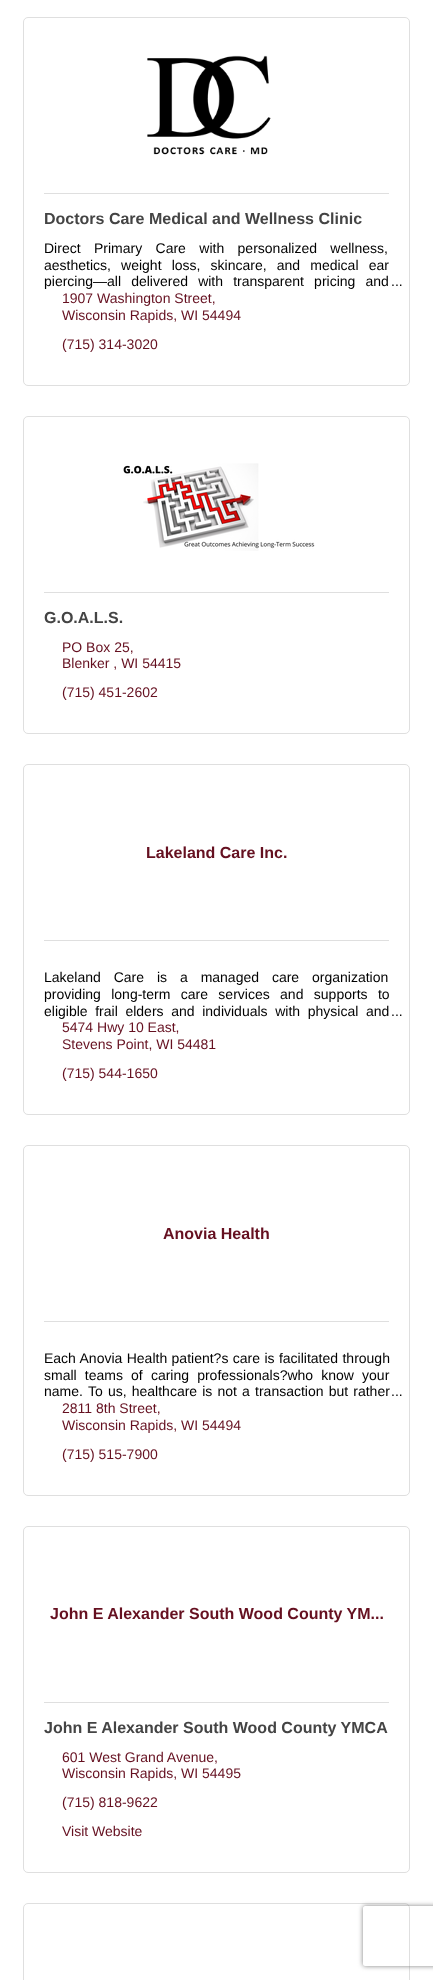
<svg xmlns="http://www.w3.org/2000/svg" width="433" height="1980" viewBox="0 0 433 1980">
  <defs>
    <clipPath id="clip1"><path d="M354 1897H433V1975H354ZM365 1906H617C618 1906 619 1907 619 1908V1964C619 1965 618 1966 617 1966H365C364 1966 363 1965 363 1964V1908C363 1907 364 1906 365 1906Z" clip-rule="evenodd"/></clipPath>
  </defs>
  <rect width="100%" height="100%" fill="#fff"/>
  <rect x="23.5" y="17.5" width="386" height="368" rx="4.5" fill="none" stroke="#dfdfdf"/>
  <image x="147" y="55" width="124" height="100" href="img/1.png"/>
  <path d="M44 193h345v1H44z" fill="#dfdfdf"/>
  <rect x="23.5" y="416.5" width="386" height="317" rx="4.5" fill="none" stroke="#dfdfdf"/>
  <image x="123" y="463" width="192" height="88" href="img/2.png"/>
  <path d="M44 592h345v1H44z" fill="#dfdfdf"/>
  <rect x="23.5" y="764.5" width="386" height="350" rx="4.5" fill="none" stroke="#dfdfdf"/>
  <path d="M44 940h345v1H44z" fill="#dfdfdf"/>
  <rect x="23.5" y="1145.5" width="386" height="350" rx="4.5" fill="none" stroke="#dfdfdf"/>
  <path d="M44 1321h345v1H44z" fill="#dfdfdf"/>
  <rect x="23.5" y="1526.5" width="386" height="346" rx="4.5" fill="none" stroke="#dfdfdf"/>
  <path d="M44 1702h345v1H44z" fill="#dfdfdf"/>
  <rect x="23.5" y="1903.5" width="386" height="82" rx="4.5" fill="none" stroke="#dfdfdf"/>
  <g clip-path="url(#clip1)">
    <rect x="363" y="1906" width="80" height="60" rx="2" fill="#808080" filter="blur(2.5px)"/>
  </g>
  <text x="44" y="224" font-family="Liberation Sans" font-size="16" font-weight="bold" fill="#444">Doctors Care Medical and Wellness Clinic</text>
  <g font-family="Liberation Sans" font-size="14" fill="#000">
    <text x="44" y="253" word-spacing="9.5">Direct Primary Care with personalized wellness,</text>
    <text x="44" y="270" word-spacing="6.25">aesthetics, weight loss, skincare, and medical ear</text>
    <text x="44" y="286" word-spacing="6.25">piercing—all delivered with transparent pricing and</text>
    <text x="391" y="286">...</text>
  </g>
  <g font-family="Liberation Sans" font-size="14" fill="#651020">
    <text x="62" y="303">1907 Washington Street,</text>
    <text x="62" y="320">Wisconsin Rapids, WI 54494</text>
    <text x="62" y="349">(715) 314-3020</text>
  </g>
  <text x="44" y="623" font-family="Liberation Sans" font-size="16" font-weight="bold" fill="#444">G.O.A.L.S.</text>
  <g font-family="Liberation Sans" font-size="14" fill="#651020">
    <text x="62" y="652">PO Box 25,</text>
    <text x="62" y="668">Blenker , WI 54415</text>
    <text x="62" y="697">(715) 451-2602</text>
  </g>
  <text x="146" y="858" font-family="Liberation Sans" font-size="16" font-weight="bold" fill="#651020">Lakeland Care Inc.</text>
  <g font-family="Liberation Sans" font-size="14" fill="#000">
    <text x="44" y="982" word-spacing="9">Lakeland Care is a managed care organization</text>
    <text x="44" y="999" word-spacing="6.5">providing long-term care services and supports to</text>
    <text x="44" y="1016" word-spacing="3.75">eligible frail elders and individuals with physical and</text>
    <text x="391" y="1016">...</text>
  </g>
  <g font-family="Liberation Sans" font-size="14" fill="#651020">
    <text x="62" y="1032">5474 Hwy 10 East,</text>
    <text x="62" y="1049">Stevens Point, WI 54481</text>
    <text x="62" y="1078">(715) 544-1650</text>
  </g>
  <text x="163" y="1239" font-family="Liberation Sans" font-size="16" font-weight="bold" fill="#651020">Anovia Health</text>
  <g font-family="Liberation Sans" font-size="14" fill="#000">
    <text x="44" y="1363" word-spacing="0.5">Each Anovia Health patient?s care is facilitated through</text>
    <text x="44" y="1380" word-spacing="4.25">small teams of caring professionals?who know your</text>
    <text x="44" y="1396">name.</text>
    <text x="88" y="1396" word-spacing="1.25">To us, healthcare is not a transaction but rather</text>
    <text x="391" y="1396">...</text>
  </g>
  <g font-family="Liberation Sans" font-size="14" fill="#651020">
    <text x="62" y="1413">2811 8th Street,</text>
    <text x="62" y="1430">Wisconsin Rapids, WI 54494</text>
    <text x="62" y="1459">(715) 515-7900</text>
  </g>
  <text x="50" y="1619" font-family="Liberation Sans" font-size="16" font-weight="bold" fill="#651020">John E Alexander South Wood County YM...</text>
  <text x="44" y="1733" font-family="Liberation Sans" font-size="16" font-weight="bold" fill="#444">John E Alexander South Wood County YMCA</text>
  <g font-family="Liberation Sans" font-size="14" fill="#651020">
    <text x="62" y="1762">601 West Grand Avenue,</text>
    <text x="62" y="1778">Wisconsin Rapids, WI 54495</text>
    <text x="62" y="1807">(715) 818-9622</text>
    <text x="62" y="1836">Visit Website</text>
  </g>
</svg>
